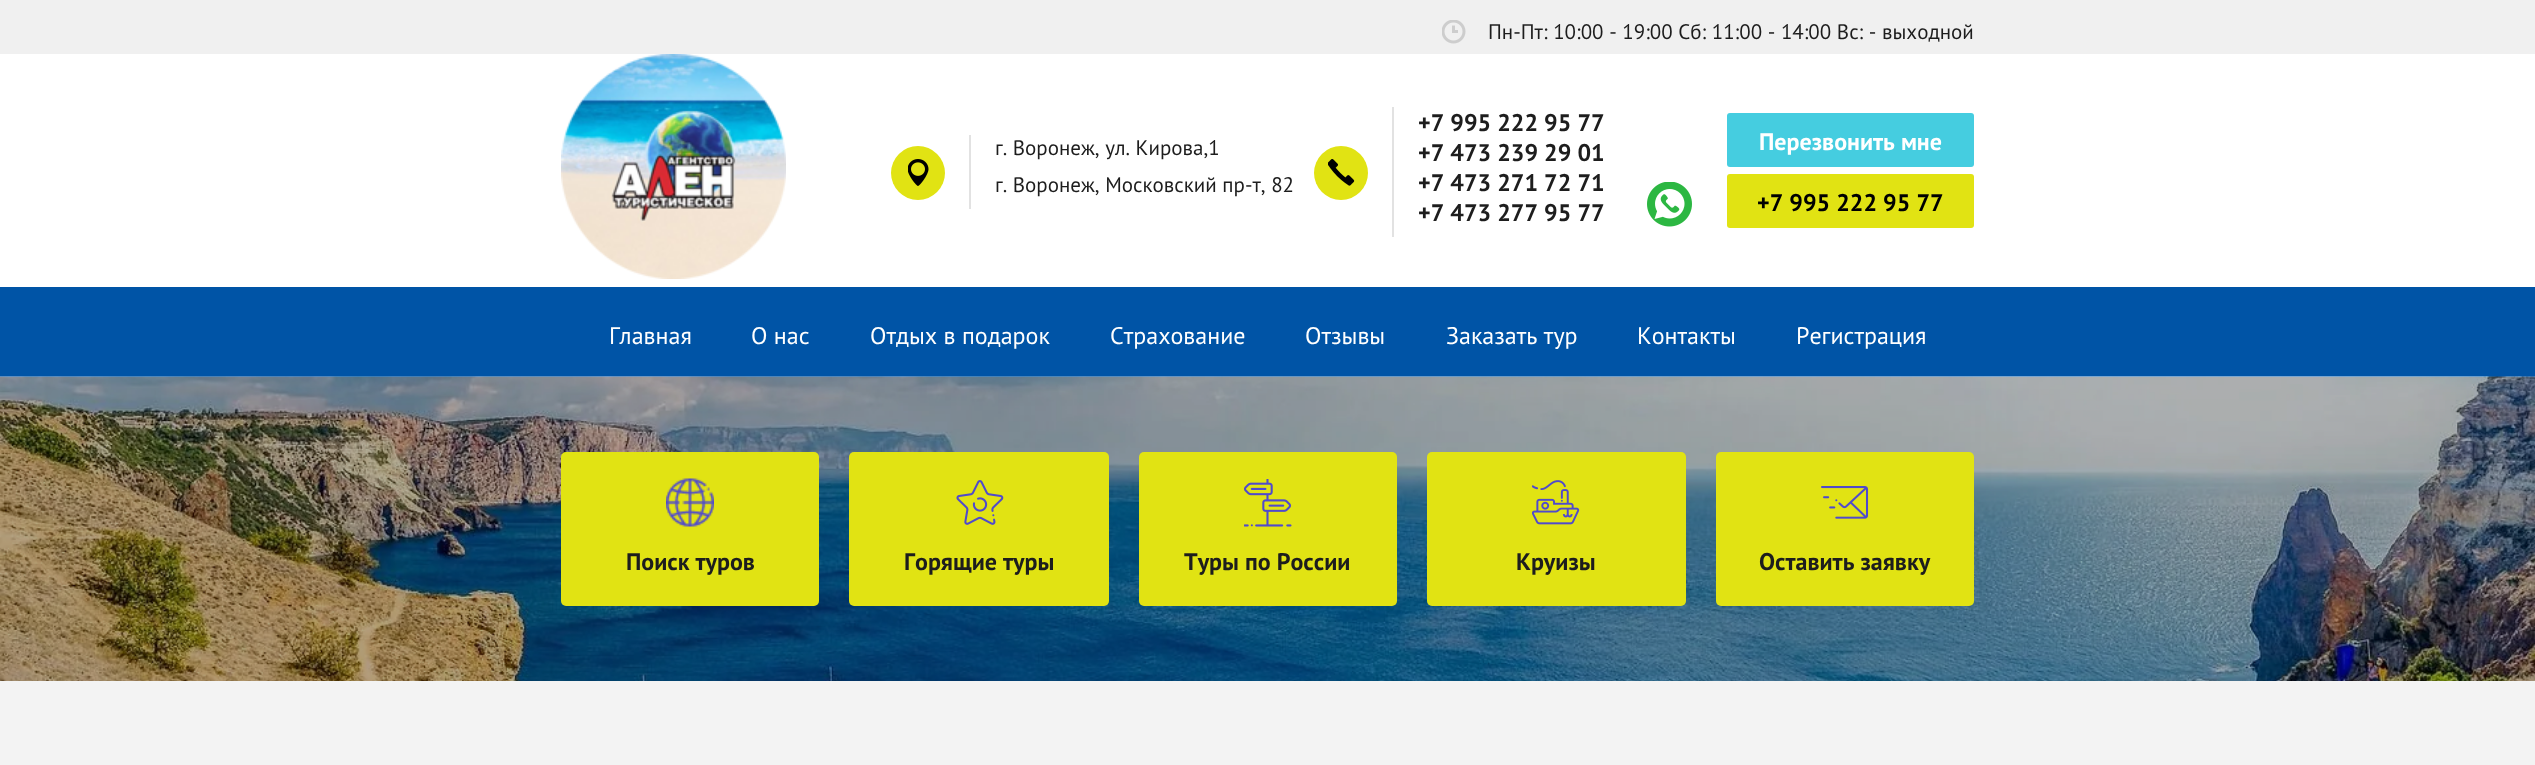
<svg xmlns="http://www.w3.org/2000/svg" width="2535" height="765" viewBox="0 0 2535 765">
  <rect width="100%" height="100%" fill="#fff"/>
  <path d="M0 0h2535v54H0z" fill="#f0f0f0"/>
  <image x="1442" y="20" width="24" height="24" href="img/1.png"/>
  <image x="561" y="54" width="225" height="225" href="img/2.png"/>
  <circle cx="918" cy="173" r="27" fill="#e1e313"/>
  <image x="908" y="159" width="21" height="27" href="img/3.png"/>
  <path d="M969 135h2v74H969z" fill="#e2e2e2"/>
  <circle cx="1341" cy="173" r="27" fill="#e1e313"/>
  <image x="1328" y="159" width="27" height="27" href="img/4.png"/>
  <path d="M1392 107h2v130H1392z" fill="#e2e2e2"/>
  <rect x="1727" y="113" width="247" height="54" rx="3" fill="#45cde0"/>
  <image x="1647" y="182" width="45" height="45" href="img/5.png"/>
  <rect x="1727" y="174" width="247" height="54" rx="3" fill="#e1e313"/>
  <path d="M0 287h2535v90H0z" fill="#0054a6"/>
  <image x="0" y="376" width="2535" height="305" href="img/6.png"/>
  <rect x="561" y="452" width="258" height="154" rx="5" fill="#e1e313"/>
  <image x="666" y="478" width="48" height="49" href="img/7.png"/>
  <rect x="849" y="452" width="260" height="154" rx="5" fill="#e1e313"/>
  <image x="956" y="480" width="48" height="45" href="img/8.png"/>
  <rect x="1139" y="452" width="258" height="154" rx="5" fill="#e1e313"/>
  <image x="1244" y="479" width="48" height="48" href="img/9.png"/>
  <rect x="1427" y="452" width="259" height="154" rx="5" fill="#e1e313"/>
  <image x="1532" y="480" width="48" height="45" href="img/10.png"/>
  <rect x="1716" y="452" width="258" height="154" rx="5" fill="#e1e313"/>
  <image x="1821" y="486" width="48" height="33" href="img/11.png"/>
  <path d="M0 681h2535v84H0z" fill="#f3f3f3"/>
  <g font-family="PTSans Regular" font-size="21" fill="#1d1d1d">
    <text x="1488" y="39">Пн-Пт: 10:00 - 19:00 Сб: 11:00 - 14:00 Вс: - выходной</text>
    <text x="995" y="155">г. Воронеж, ул. Кирова,1</text>
    <text x="995" y="192">г. Воронеж, Московский пр-т, 82</text>
  </g>
  <g font-family="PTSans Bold" font-size="24" font-weight="bold" fill="#1d1d1d">
    <text x="1418" y="131">+7 995 222 95 77</text>
    <text x="1418" y="161">+7 473 239 29 01</text>
    <text x="1418" y="191">+7 473 271 72 71</text>
    <text x="1418" y="221">+7 473 277 95 77</text>
  </g>
  <text x="1759" y="150" font-family="PTSans Bold" font-size="24" font-weight="bold" fill="#fff">Перезвонить мне</text>
  <text x="1757" y="211" font-family="PTSans Bold" font-size="24" font-weight="bold" fill="#000">+7 995 222 95 77</text>
  <g font-family="PTSans Regular" font-size="24" fill="#fff">
    <text x="609" y="344">Главная</text>
    <text x="751" y="344">О нас</text>
    <text x="870" y="344">Отдых в подарок</text>
    <text x="1110" y="344">Страхование</text>
    <text x="1305" y="344">Отзывы</text>
    <text x="1446" y="344">Заказать тур</text>
    <text x="1637" y="344">Контакты</text>
    <text x="1796" y="344">Регистрация</text>
  </g>
  <g font-family="PTSans Bold" font-size="24" font-weight="bold" fill="#1d1d1d">
    <text x="626" y="570">Поиск туров</text>
    <text x="904" y="570">Горящие туры</text>
    <text x="1184" y="570">Туры по России</text>
    <text x="1516" y="570">Круизы</text>
    <text x="1759" y="570">Оставить заявку</text>
  </g>
</svg>
